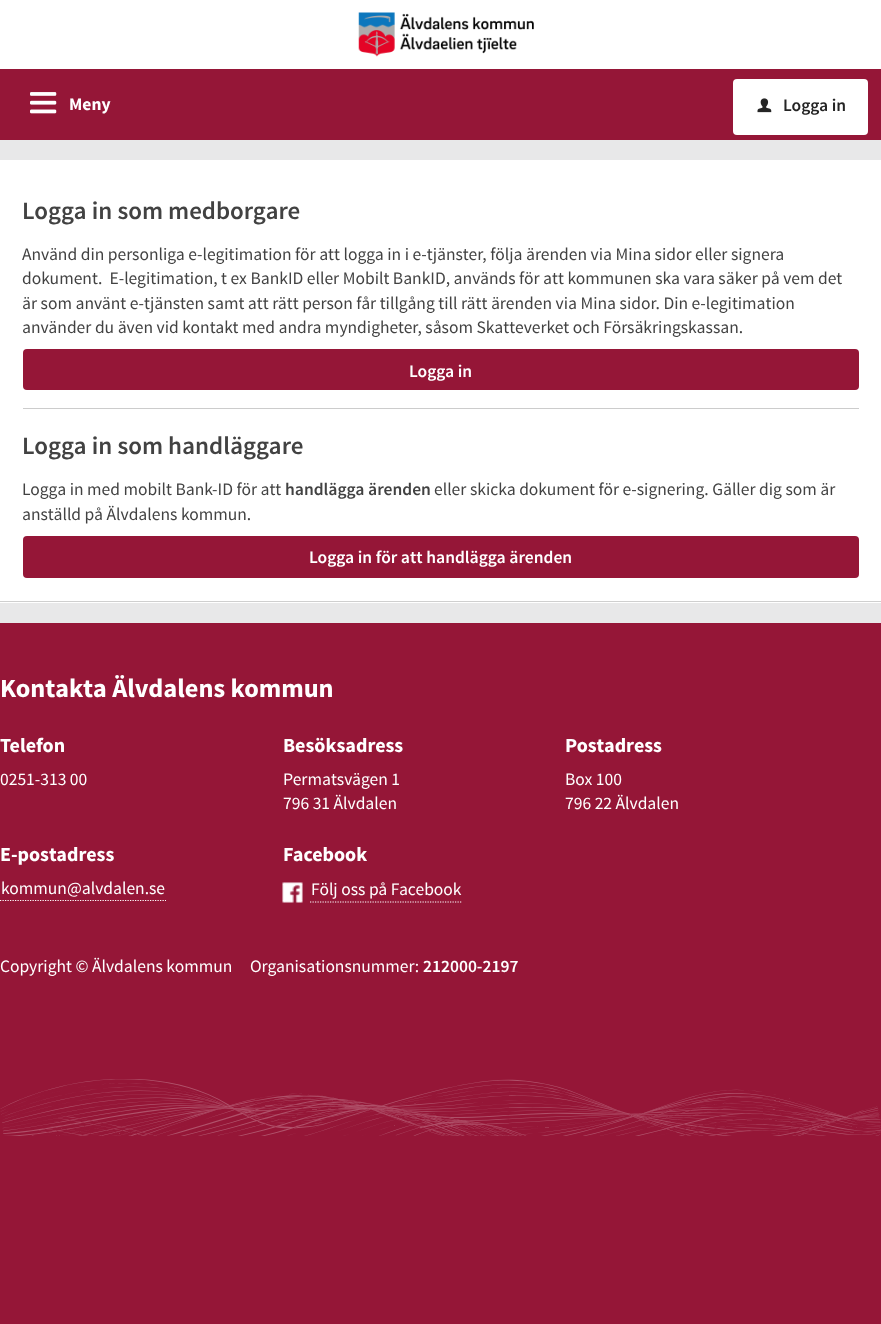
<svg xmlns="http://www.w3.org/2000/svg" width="881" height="1324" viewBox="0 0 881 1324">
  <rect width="100%" height="100%" fill="#e8e8e9"/>
  <path d="M0 0h881v69H0z" fill="#fff"/>
  <image x="358" y="12" width="176" height="45" href="img/1.png"/>
  <path d="M0 69h881v71H0z" fill="#951637"/>
  <image x="30" y="92" width="27" height="22" href="img/2.png"/>
  <rect x="733" y="79" width="135" height="56" rx="4" fill="#fff"/>
  <image x="757" y="98" width="15" height="15" href="img/3.png"/>
  <path d="M0 160h881v443H0z" fill="#fff"/>
  <path d="M0 601h881v1H0z" fill="#cfcfcf"/>
  <rect x="23" y="349" width="836" height="41" rx="4" fill="#951637"/>
  <path d="M23 408h836v1H23z" fill="#ccc"/>
  <rect x="23" y="536" width="836" height="42" rx="4" fill="#951637"/>
  <path d="M-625 623V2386H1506V623H881V1136H0V623Z" fill="#951637"/>
  <path d="M0 623h881v513H0z" fill="#951637"/>
  <image x="0" y="1079" width="881" height="57" href="img/4.png"/>
  <path d="M0 900.5H166" fill="none" stroke="#fff" stroke-width="1.2" stroke-dasharray="1.25 1.25"/>
  <image x="282" y="882" width="21" height="21" href="img/5.png"/>
  <path d="M310 902H462.5" fill="none" stroke="#fff" stroke-width="1.2" stroke-dasharray="1.25 1.25"/>
  <text x="69" y="110" font-family="Source Sans Pro" font-size="17.5" font-weight="bold" fill="#fff">Meny</text>
  <text x="783" y="111" font-family="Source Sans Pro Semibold" font-size="17.5" font-weight="600" fill="#252525">Logga in</text>
  <text x="22" y="219" font-family="Source Sans Pro Semibold" font-size="25" font-weight="600" fill="#424242">Logga in som medborgare</text>
  <g font-family="Source Sans Pro" font-size="17.5" fill="#424242">
    <text x="22" y="260">Använd din personliga e-legitimation för att logga in i e-tjänster, följa ärenden via Mina sidor eller signera</text>
    <text x="22" y="284" xml:space="preserve">dokument.  E-legitimation, t ex BankID eller Mobilt BankID, används för att kommunen ska vara säker på vem det</text>
    <text x="22" y="309">är som använt e-tjänsten samt att rätt person får tillgång till rätt ärenden via Mina sidor. Din e-legitimation</text>
    <text x="22" y="333">använder du även vid kontakt med andra myndigheter, såsom Skatteverket och Försäkringskassan.</text>
  </g>
  <text x="409" y="377" font-family="Source Sans Pro Semibold" font-size="17.5" font-weight="600" fill="#fff">Logga in</text>
  <text x="22" y="454" font-family="Source Sans Pro Semibold" font-size="25" font-weight="600" fill="#424242">Logga in som handläggare</text>
  <text x="22" y="495" font-family="Source Sans Pro" font-size="17.5" fill="#424242">Logga in med mobilt Bank-ID för att</text>
  <text x="285" y="495" font-family="Source Sans Pro Semibold" font-size="17.5" font-weight="600" fill="#424242">handlägga ärenden</text>
  <g font-family="Source Sans Pro" font-size="17.5" fill="#424242">
    <text x="434" y="495">eller skicka dokument för e-signering. Gäller dig som är</text>
    <text x="22" y="520">anställd på Älvdalens kommun.</text>
  </g>
  <text x="309" y="563" font-family="Source Sans Pro Semibold" font-size="17.5" font-weight="600" fill="#fff">Logga in för att handlägga ärenden</text>
  <text x="0" y="697" font-family="Source Sans Pro" font-size="26.25" font-weight="bold" fill="#fff">Kontakta Älvdalens kommun</text>
  <text x="0" y="752" font-family="Source Sans Pro" font-size="20" font-weight="bold" fill="#fff">Telefon</text>
  <text x="0" y="785" font-family="Source Sans Pro" font-size="17.5" fill="#fff">0251-313 00</text>
  <text x="283" y="752" font-family="Source Sans Pro" font-size="20" font-weight="bold" fill="#fff">Besöksadress</text>
  <g font-family="Source Sans Pro" font-size="17.5" fill="#fff">
    <text x="283" y="785">Permatsvägen 1</text>
    <text x="283" y="809">796 31 Älvdalen</text>
  </g>
  <text x="565" y="752" font-family="Source Sans Pro" font-size="20" font-weight="bold" fill="#fff">Postadress</text>
  <g font-family="Source Sans Pro" font-size="17.5" fill="#fff">
    <text x="565" y="785">Box 100</text>
    <text x="565" y="809">796 22 Älvdalen</text>
  </g>
  <text x="0" y="861" font-family="Source Sans Pro" font-size="20" font-weight="bold" fill="#fff">E-postadress</text>
  <text x="1" y="894" font-family="Source Sans Pro" font-size="17.5" fill="#fff">kommun@alvdalen.se</text>
  <text x="283" y="861" font-family="Source Sans Pro" font-size="20" font-weight="bold" fill="#fff">Facebook</text>
  <g font-family="Source Sans Pro" font-size="17.5" fill="#fff">
    <text x="311" y="895">Följ oss på Facebook</text>
    <text x="0" y="972" xml:space="preserve">Copyright © Älvdalens kommun     Organisationsnummer:</text>
  </g>
  <text x="423" y="972" font-family="Source Sans Pro Semibold" font-size="17.5" font-weight="600" fill="#fff">212000-2197</text>
</svg>
